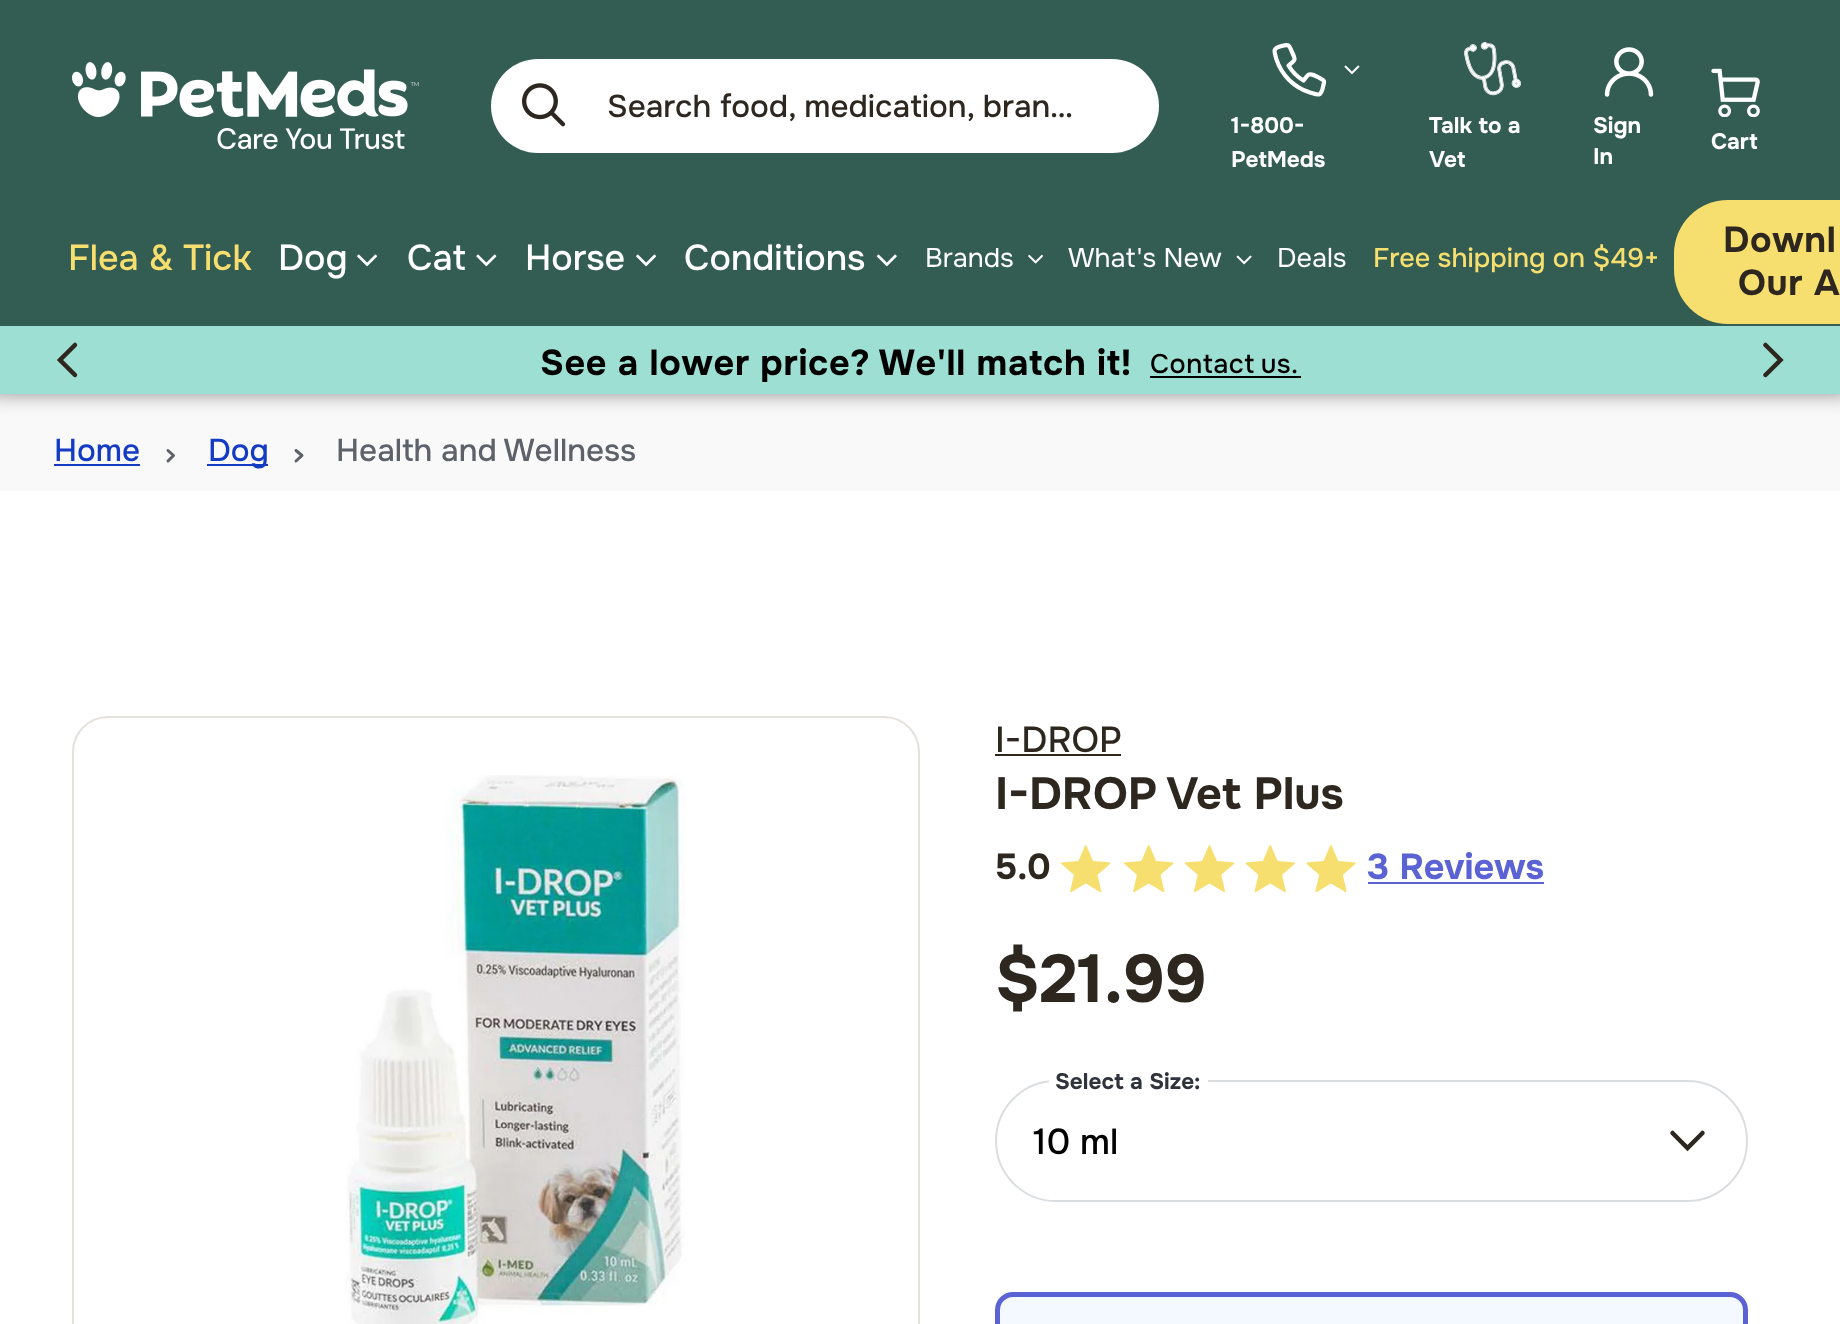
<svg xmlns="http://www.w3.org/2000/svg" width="1840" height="1324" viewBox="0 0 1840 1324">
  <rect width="100%" height="100%" fill="#f9f9f9"/>
  <path d="M-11 302h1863v90H-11z" fill="#00000080" filter="blur(11px)"/>
  <path d="M0 0h1840v326H0z" fill="#335d53"/>
  <image x="72" y="62" width="347" height="88" href="img/1.png"/>
  <rect x="491" y="59" width="668" height="94" rx="47" fill="#fff"/>
  <image x="522" y="83" width="44" height="44" href="img/2.png"/>
  <path d="M1307.5 75.5L1303.5 80.5C1297.5 77 1292 71.5 1288.5 65.5C1295.5 59.5 1296 60.5 1292 52C1289 45 1289.5 44 1281.5 46C1273 48.5 1273.5 49.5 1276.5 59.5C1281.5 75 1294 87.5 1310 92.5C1318 95 1320.5 96.5 1322.5 89L1324 82.5C1324.5 80 1322 79.5 1320.5 78.5C1317.5 77 1310.5 72 1307.5 75.5Z" fill="none" stroke="#fff" stroke-width="4.2" stroke-linecap="round" stroke-linejoin="round"/>
  <image x="1344" y="65" width="16" height="10" href="img/3.png"/>
  <image x="1464" y="42" width="57" height="54" href="img/4.png"/>
  <image x="1604" y="47" width="50" height="50" href="img/5.png"/>
  <image x="1711" y="68" width="49" height="49" href="img/6.png"/>
  <image x="357" y="254" width="21" height="13" href="img/7.png"/>
  <image x="476" y="254" width="21" height="13" href="img/8.png"/>
  <image x="636" y="254" width="21" height="13" href="img/7.png"/>
  <image x="876" y="254" width="21" height="13" href="img/9.png"/>
  <image x="1028" y="254" width="15" height="10" href="img/10.png"/>
  <image x="1236" y="255" width="16" height="10" href="img/11.png"/>
  <rect x="1674" y="200" width="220" height="124" rx="54" fill="#f6df6e"/>
  <path d="M0 326h1840v68H0z" fill="#9de0d3"/>
  <path d="M75 375L60 360L75 345" fill="none" stroke="#2d2720" stroke-width="4.5" stroke-linecap="round"/>
  <path d="M1150 376h151v2H1150z" fill="#000"/>
  <path d="M1765.5 345L1780.5 360L1765.5 375" fill="none" stroke="#2d2720" stroke-width="4.5" stroke-linecap="round"/>
  <path d="M168 461L173.5 455.5L168 450.5" fill="none" stroke="#5c616a" stroke-width="3" stroke-linecap="round" stroke-linejoin="round"/>
  <path d="M54 464h86v2H54z" fill="#143bc4"/>
  <path d="M296 461L302 455.5L296 450.5" fill="none" stroke="#5c616a" stroke-width="3" stroke-linecap="round" stroke-linejoin="round"/>
  <path d="M207 464h61v2H207z" fill="#143bc4"/>
  <path d="M0 491h1840v833H0z" fill="#fff"/>
  <rect x="73" y="717" width="846" height="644" rx="35" fill="none" stroke="#e5e1dd" stroke-width="2"/>
  <image x="346" y="775" width="339" height="549" href="img/12.png"/>
  <path d="M995 754h126v2H995z" fill="#2d2720"/>
  <image x="1061" y="845" width="50" height="48" href="img/13.png"/>
  <image x="1124" y="845" width="50" height="48" href="img/13.png"/>
  <image x="1184" y="845" width="51" height="48" href="img/14.png"/>
  <image x="1245" y="845" width="50" height="48" href="img/15.png"/>
  <image x="1306" y="845" width="50" height="48" href="img/16.png"/>
  <path d="M1368 882h176v2H1368z" fill="#5a62d4"/>
  <rect x="996" y="1081" width="751" height="120" rx="60" fill="none" stroke="#dbdee0" stroke-width="2"/>
  <path d="M1049 1080h159v3H1049z" fill="#fff"/>
  <path d="M1702.5 1133L1687.5 1148L1672.5 1133" fill="none" stroke="#2d2720" stroke-width="4.5" stroke-linecap="round"/>
  <rect x="997.5" y="1294.5" width="748" height="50" rx="15.5" fill="#f4f8ff" stroke="#5a62d4" stroke-width="5"/>
  <text x="607" y="117" font-family="Onest" font-size="31.5" font-weight="500" fill="#2d2720">Search food, medication, bran…</text>
  <g font-family="Onest" font-size="22.5" font-weight="bold" fill="#fff">
    <text x="1231" y="133">1-800-</text>
    <text x="1231" y="167">PetMeds</text>
    <text x="1429" y="133">Talk to a</text>
    <text x="1429" y="167">Vet</text>
    <text x="1593" y="133">Sign</text>
    <text x="1593" y="164">In</text>
    <text x="1711" y="149">Cart</text>
  </g>
  <text x="68" y="270" font-family="Onest" font-size="36" font-weight="500" fill="#f6df6e">Flea &amp; Tick</text>
  <g font-family="Onest" font-size="36" font-weight="500" fill="#fff">
    <text x="278" y="270">Dog</text>
    <text x="407" y="270">Cat</text>
    <text x="525" y="270">Horse</text>
    <text x="684" y="270">Conditions</text>
  </g>
  <g font-family="Onest" font-size="27" fill="#fff">
    <text x="925" y="267">Brands</text>
    <text x="1068" y="267">What's New</text>
    <text x="1277" y="267">Deals</text>
  </g>
  <text x="1373" y="267" font-family="Onest" font-size="27" font-weight="500" fill="#f6df6e">Free shipping on $49+</text>
  <g font-family="Onest" font-size="36" font-weight="bold" letter-spacing="0.7" fill="#2d2720">
    <text x="1723" y="252">Downl</text>
    <text x="1738" y="295">Our A</text>
  </g>
  <text x="540" y="375" word-spacing="-0.25" font-family="Onest" font-size="36" font-weight="bold" letter-spacing="0.7" fill="#000">See a lower price? We'll match it!</text>
  <text x="1150" y="373" word-spacing="-2" font-family="Onest" font-size="27" font-weight="500" letter-spacing="0.5" fill="#000">Contact us.</text>
  <g font-family="Onest" font-size="31.5" font-weight="500" fill="#143bc4">
    <text x="54" y="461">Home</text>
    <text x="208" y="461">Dog</text>
  </g>
  <text x="336" y="461" font-family="Onest" font-size="31.5" font-weight="500" fill="#5c616a">Health and Wellness</text>
  <text x="995" y="752" font-family="Onest" font-size="36" font-weight="500" fill="#2d2720">I-DROP</text>
  <text x="995" y="809" font-family="Onest" font-size="45" font-weight="bold" fill="#2d2720">I-DROP Vet Plus</text>
  <text x="995" y="879" font-family="Onest" font-size="36" font-weight="bold" fill="#2d2720">5.0</text>
  <text x="1367" y="879" font-family="Onest" font-size="36" font-weight="bold" fill="#5a62d4">3 Reviews</text>
  <text x="995" y="1002" font-family="Onest" font-size="67.5" font-weight="bold" fill="#2d2720">$21.99</text>
  <text x="1055" y="1089" font-family="Onest" font-size="22.5" font-weight="bold" fill="#2f333b">Select a Size:</text>
  <text x="1033" y="1154" font-family="Onest" font-size="36" font-weight="500" fill="#000">10 ml</text>
</svg>
